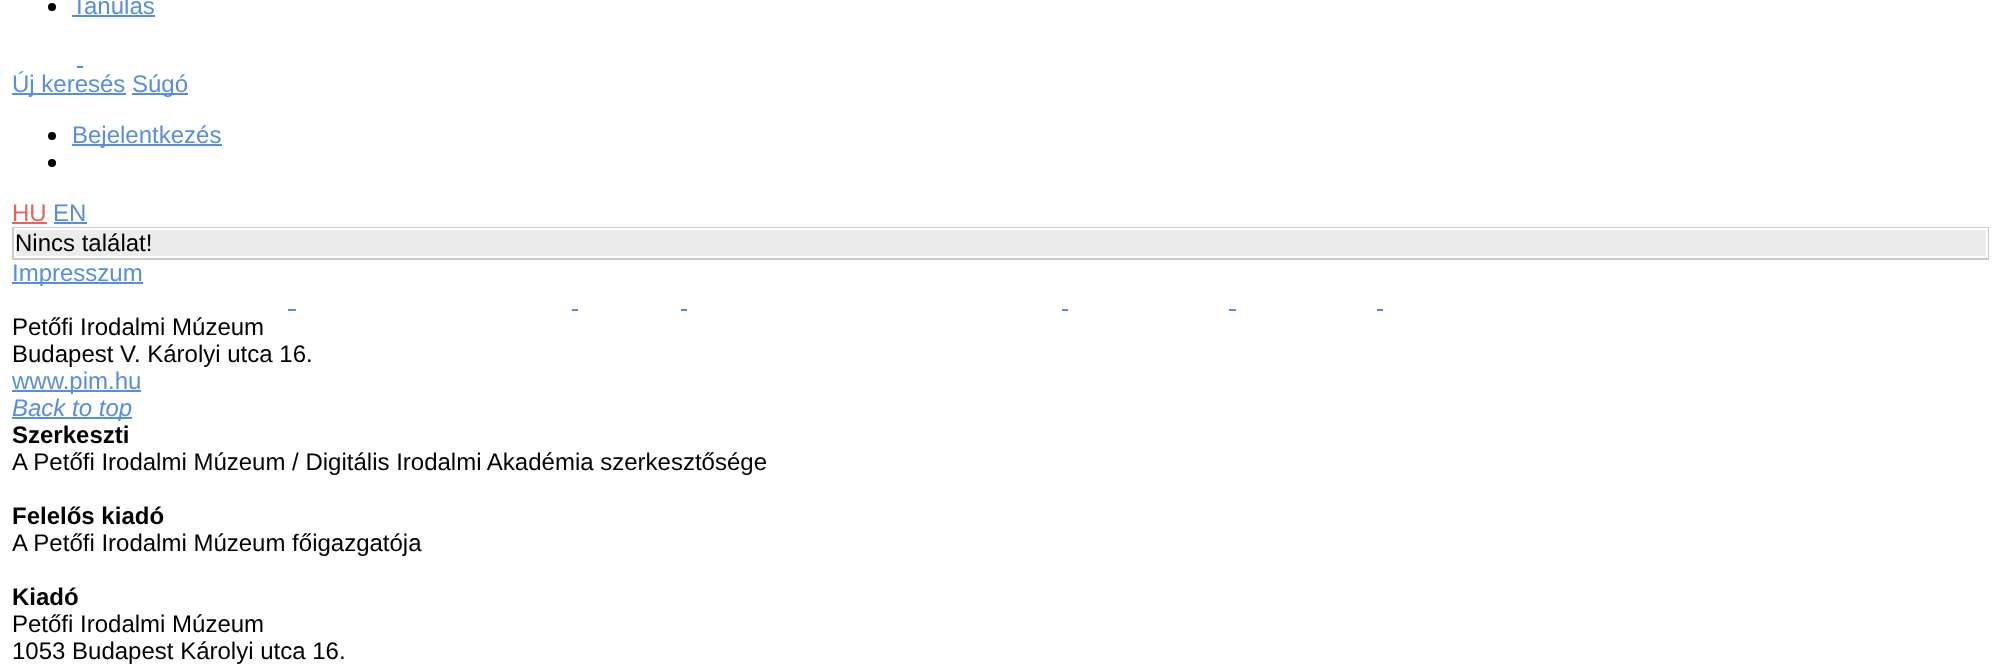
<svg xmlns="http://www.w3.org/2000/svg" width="2000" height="664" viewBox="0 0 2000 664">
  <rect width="100%" height="100%" fill="#fff"/>
  <circle cx="52" cy="7" r="4" fill="#000"/>
  <path d="M72 15h83v2H72z" fill="#578fdd"/>
  <path d="M77 66h6v2H77z" fill="#578fdd"/>
  <path d="M12 93h114v2H12z" fill="#578fdd"/>
  <path d="M132 93h56v2H132z" fill="#578fdd"/>
  <circle cx="52" cy="136" r="4" fill="#000"/>
  <path d="M72 144h150v2H72z" fill="#578fdd"/>
  <circle cx="52" cy="163" r="4" fill="#000"/>
  <path d="M12 222h35v2H12z" fill="#eb6160"/>
  <path d="M54 222h33v2H54z" fill="#578fdd"/>
  <path d="M13 228h1975v31H13z" fill="none" stroke="#cacaca" stroke-width="2"/>
  <path d="M15 229h1972v28H15z" fill="#ececec" stroke="#fff" stroke-width="2"/>
  <path d="M12 282h131v2H12z" fill="#578fdd"/>
  <path d="M288 309h8v2H288z" fill="#578fdd"/>
  <path d="M572 309h6v2H572z" fill="#578fdd"/>
  <path d="M681 309h6v2H681z" fill="#578fdd"/>
  <path d="M1062 309h6v2H1062z" fill="#578fdd"/>
  <path d="M1229 309h7v2H1229z" fill="#578fdd"/>
  <path d="M1377 309h6v2H1377z" fill="#578fdd"/>
  <path d="M12 390h129v2H12z" fill="#578fdd"/>
  <path d="M12 417h120v2H12z" fill="#578fdd"/>
  <g font-family="Liberation Sans" font-size="24" fill="#578fdd">
    <text x="72" y="14">Tanulás</text>
    <text x="12" y="92">Új keresés</text>
    <text x="132" y="92">Súgó</text>
    <text x="72" y="143">Bejelentkezés</text>
  </g>
  <text x="12" y="221" font-family="Liberation Sans" font-size="24" fill="#eb6160">HU</text>
  <text x="53" y="221" font-family="Liberation Sans" font-size="24" fill="#578fdd">EN</text>
  <text x="15" y="251" font-family="Liberation Sans" font-size="24" fill="#000">Nincs találat!</text>
  <text x="12" y="281" font-family="Liberation Sans" font-size="24" fill="#578fdd">Impresszum</text>
  <g font-family="Liberation Sans" font-size="24" fill="#000">
    <text x="12" y="335">Petőfi Irodalmi Múzeum</text>
    <text x="12" y="362">Budapest V. Károlyi utca 16.</text>
  </g>
  <text x="12" y="389" font-family="Liberation Sans" font-size="24" fill="#578fdd">www.pim.hu</text>
  <text x="12" y="416" font-family="Liberation Sans" font-size="24" font-style="italic" fill="#578fdd">Back to top</text>
  <text x="12" y="443" font-family="Liberation Sans" font-size="24" font-weight="bold" fill="#000">Szerkeszti</text>
  <text x="12" y="470" font-family="Liberation Sans" font-size="24" fill="#000">A Petőfi Irodalmi Múzeum / Digitális Irodalmi Akadémia szerkesztősége</text>
  <text x="12" y="524" font-family="Liberation Sans" font-size="24" font-weight="bold" fill="#000">Felelős kiadó</text>
  <text x="12" y="551" font-family="Liberation Sans" font-size="24" fill="#000">A Petőfi Irodalmi Múzeum főigazgatója</text>
  <text x="12" y="605" font-family="Liberation Sans" font-size="24" font-weight="bold" fill="#000">Kiadó</text>
  <g font-family="Liberation Sans" font-size="24" fill="#000">
    <text x="12" y="632">Petőfi Irodalmi Múzeum</text>
    <text x="12" y="659">1053 Budapest Károlyi utca 16.</text>
  </g>
</svg>
